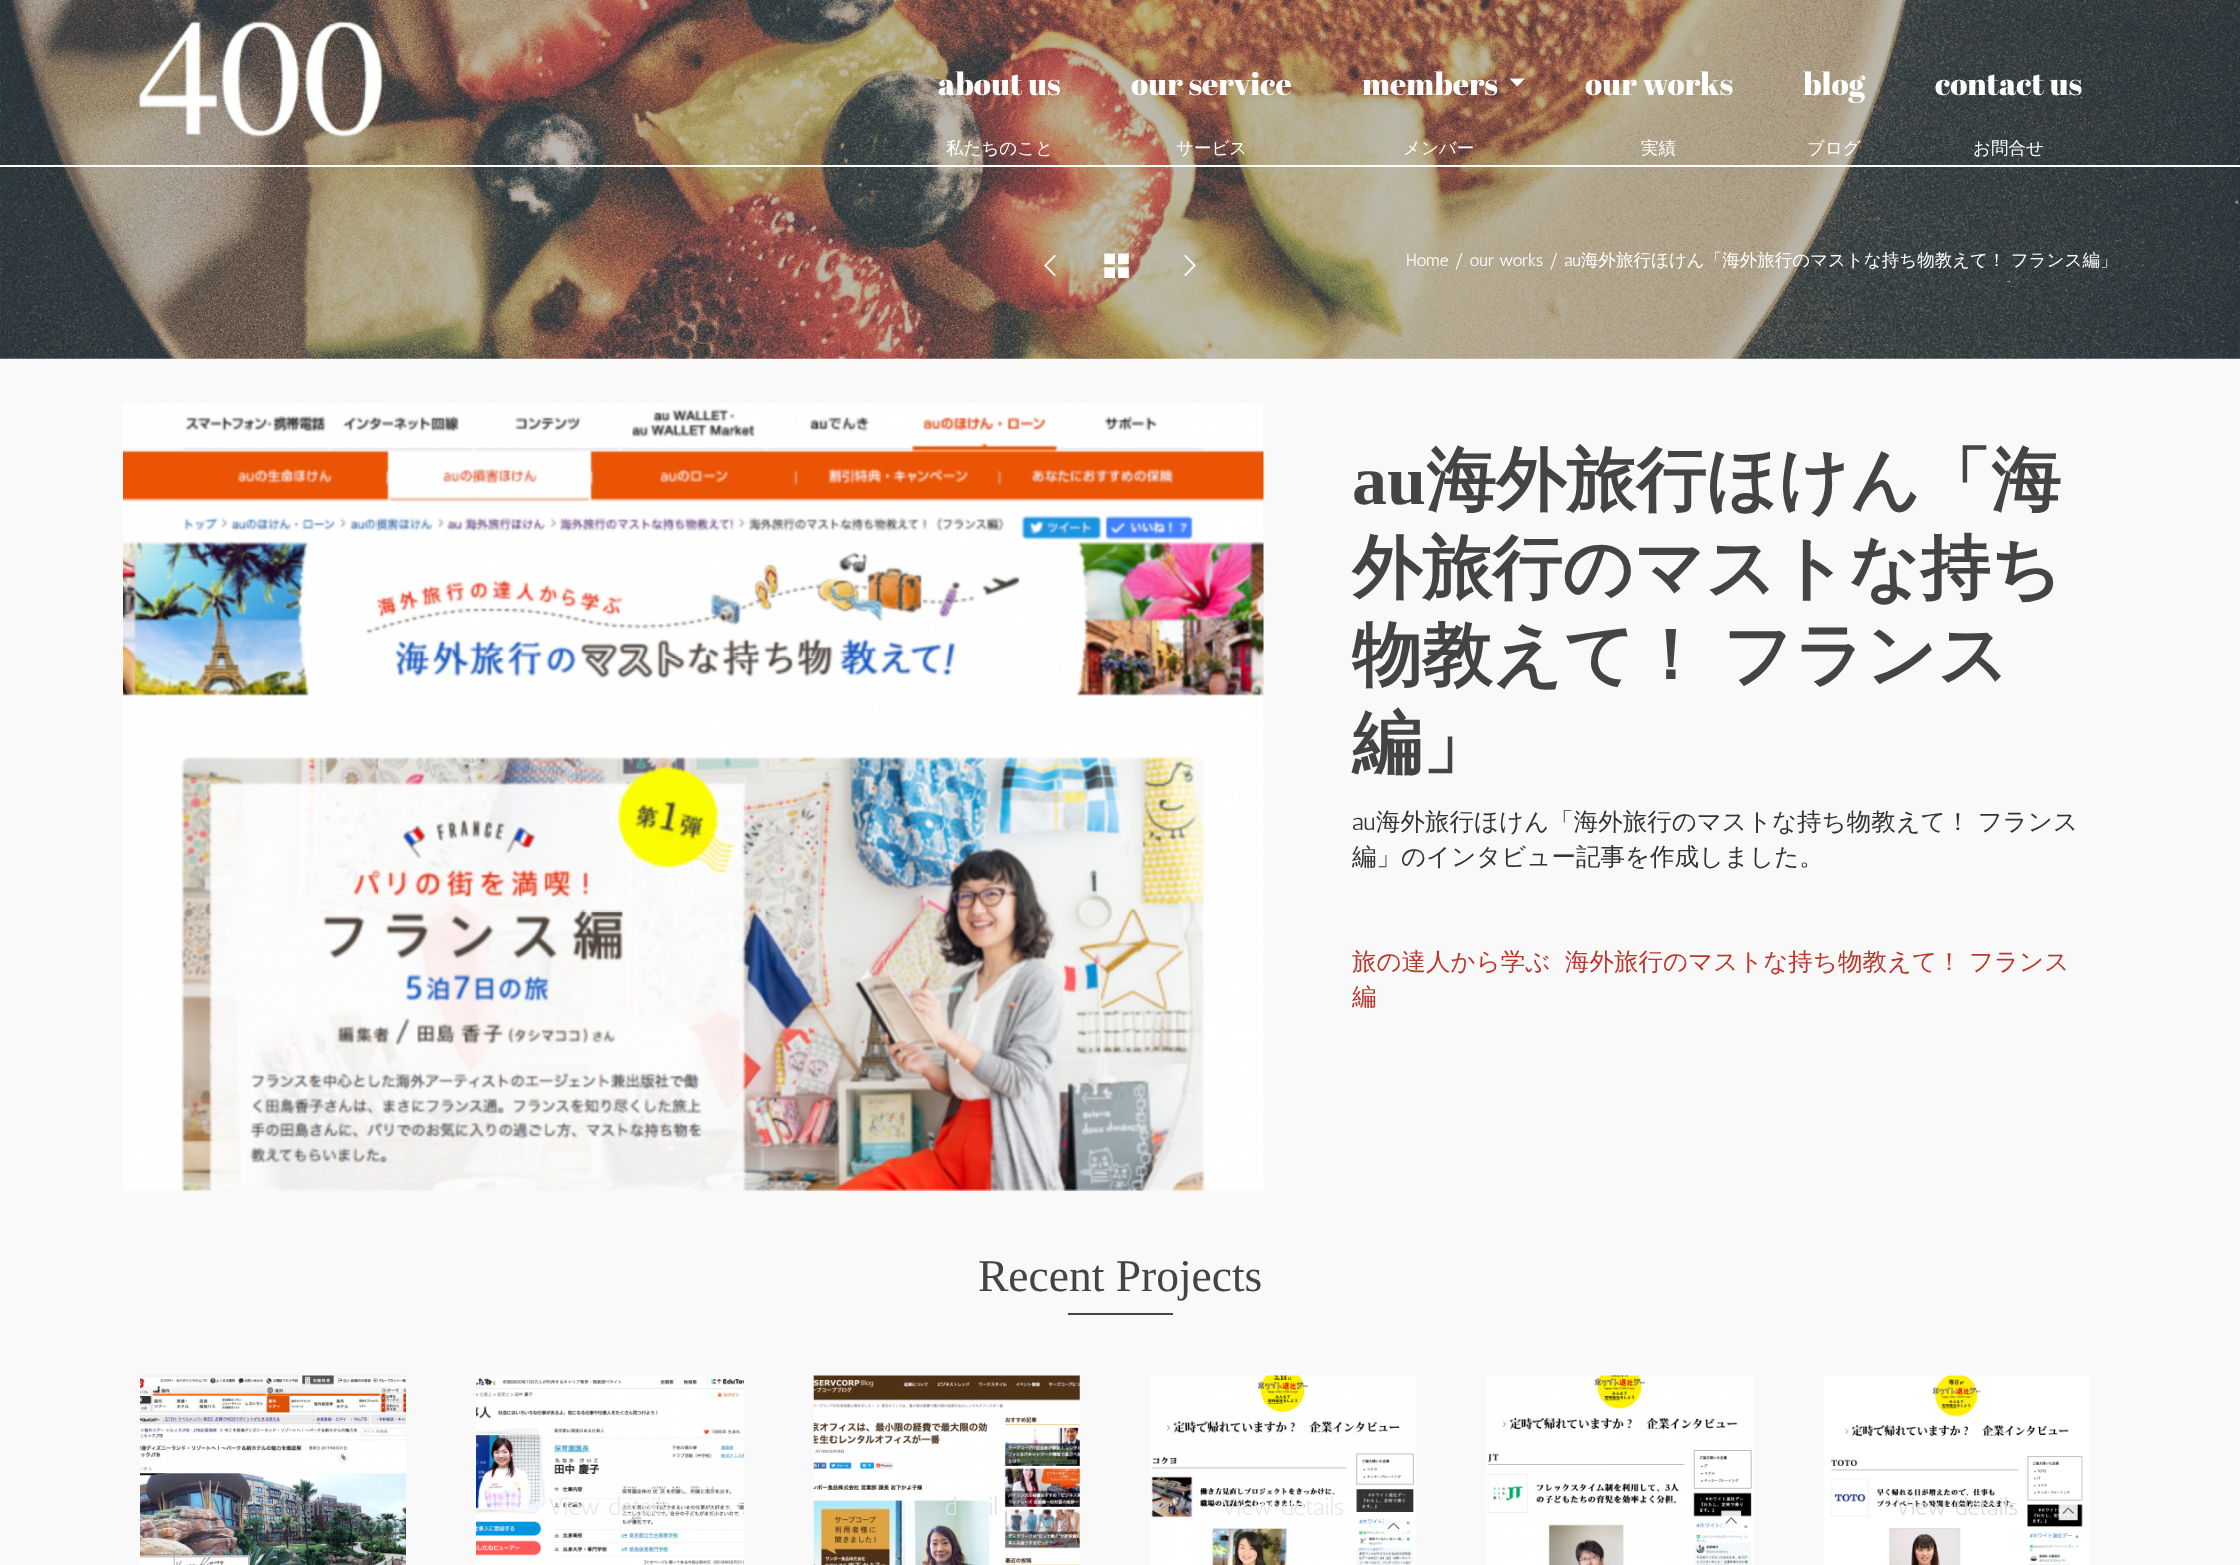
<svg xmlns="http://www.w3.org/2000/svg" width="2240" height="1565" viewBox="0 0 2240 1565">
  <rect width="100%" height="100%" fill="#f9f9f9"/>
  <image x="0" y="0" width="2240" height="359" href="img/2.png"/>
  <path d="M0 165h2240v2H0z" fill="#fff"/>
  <image x="138" y="21" width="245" height="117" href="img/1.png"/>
  <path d="M1509.5 78.5L1517 86.5L1525 78.5Z" fill="#fff"/>
  <image x="1044" y="255" width="12" height="21" href="img/3.png"/>
  <image x="1104" y="253" width="25" height="26" href="img/4.png"/>
  <image x="1184" y="255" width="12" height="21" href="img/5.png"/>
  <image x="123" y="403" width="1141" height="788" href="img/6.png"/>
  <path d="M1068 1313h105v2H1068z" fill="#444"/>
  <image x="140" y="1375" width="266" height="190" href="img/7.png"/>
  <image x="476" y="1376" width="268" height="189" href="img/8.png"/>
  <image x="813" y="1375" width="267" height="190" href="img/9.png"/>
  <image x="1150" y="1375" width="266" height="190" href="img/10.png"/>
  <image x="1486" y="1375" width="267" height="190" href="img/11.png"/>
  <image x="1824" y="1375" width="265" height="190" href="img/12.png"/>
  <text x="938" y="95" font-family="Abril Fatface" font-size="31.5" fill="#fff">about us</text>
  <text x="946" y="154" font-family="WenQuanYi Zen Hei" font-size="17.5" font-weight="500" fill="#fff">私たちのこと</text>
  <text x="1131" y="95" font-family="Abril Fatface" font-size="31.5" fill="#fff">our service</text>
  <text x="1176" y="154" font-family="WenQuanYi Zen Hei" font-size="17.5" font-weight="500" fill="#fff">サービス</text>
  <text x="1362" y="95" font-family="Abril Fatface" font-size="31.5" fill="#fff">members</text>
  <text x="1403" y="154" font-family="WenQuanYi Zen Hei" font-size="17.5" font-weight="500" fill="#fff">メンバー</text>
  <text x="1585" y="95" font-family="Abril Fatface" font-size="31.5" fill="#fff">our works</text>
  <text x="1641" y="154" font-family="WenQuanYi Zen Hei" font-size="17.5" font-weight="500" fill="#fff">実績</text>
  <text x="1803" y="95" font-family="Abril Fatface" font-size="31.5" fill="#fff">blog</text>
  <text x="1807" y="154" font-family="WenQuanYi Zen Hei" font-size="17.5" font-weight="500" fill="#fff">ブログ</text>
  <text x="1935" y="95" font-family="Abril Fatface" font-size="31.5" fill="#fff">contact us</text>
  <text x="1973" y="154" font-family="WenQuanYi Zen Hei" font-size="17.5" font-weight="500" fill="#fff">お問合せ</text>
  <text x="1406" y="266" font-family="Antic" font-size="17.5" fill="#fff">Home / our works / au</text>
  <text x="1581" y="266" font-family="WenQuanYi Zen Hei" font-size="17.5" font-weight="500" fill="#fff">海外旅行ほけん「海外旅行のマストな持ち物教えて！ フランス編」</text>
  <text x="1352" y="504" font-family="Liberation Serif" font-size="70" font-weight="bold" fill="#444">au</text>
  <g font-family="WenQuanYi Zen Hei" font-size="70" font-weight="bold" fill="#444">
    <text x="1426" y="504">海外旅行ほけん「海</text>
    <text x="1352" y="592">外旅行のマストな持ち</text>
    <text x="1352" y="679" word-spacing="-4">物教えて！ フランス</text>
    <text x="1352" y="767">編」</text>
  </g>
  <text x="1352" y="830" font-family="Antic" font-size="24.5" fill="#333">au</text>
  <g font-family="WenQuanYi Zen Hei" font-size="24.5" font-weight="500" fill="#333">
    <text x="1376" y="830">海外旅行ほけん「海外旅行のマストな持ち物教えて！ フランス</text>
    <text x="1352" y="865">編」のインタビュー記事を作成しました。</text>
  </g>
  <g font-family="WenQuanYi Zen Hei" font-size="24.5" font-weight="500" fill="#bf352b">
    <text x="1352" y="970">旅の達人から学ぶ</text>
    <text x="1565" y="970">海外旅行のマストな持ち物教えて！ フランス</text>
    <text x="1352" y="1005">編</text>
  </g>
  <text x="978" y="1291" font-family="Liberation Serif" font-size="45.5" fill="#444">Recent Projects</text>
  <text x="212" y="1515" font-family="Antic" font-size="24.5" fill="#6f7986">View details</text>
  <text x="548" y="1515" font-family="Antic" font-size="24.5" fill="#e9e9e9">View details</text>
  <g font-family="Antic" font-size="24.5" fill="#d6e7e7">
    <text x="944" y="1515">d</text>
    <text x="988" y="1515">il</text>
  </g>
  <text x="1221" y="1515" font-family="Antic" font-size="24.5" fill="#e9e9e9">View details</text>
  <text x="1895" y="1515" font-family="Antic" font-size="24.5" fill="#dfdfdf">View details</text>
</svg>
